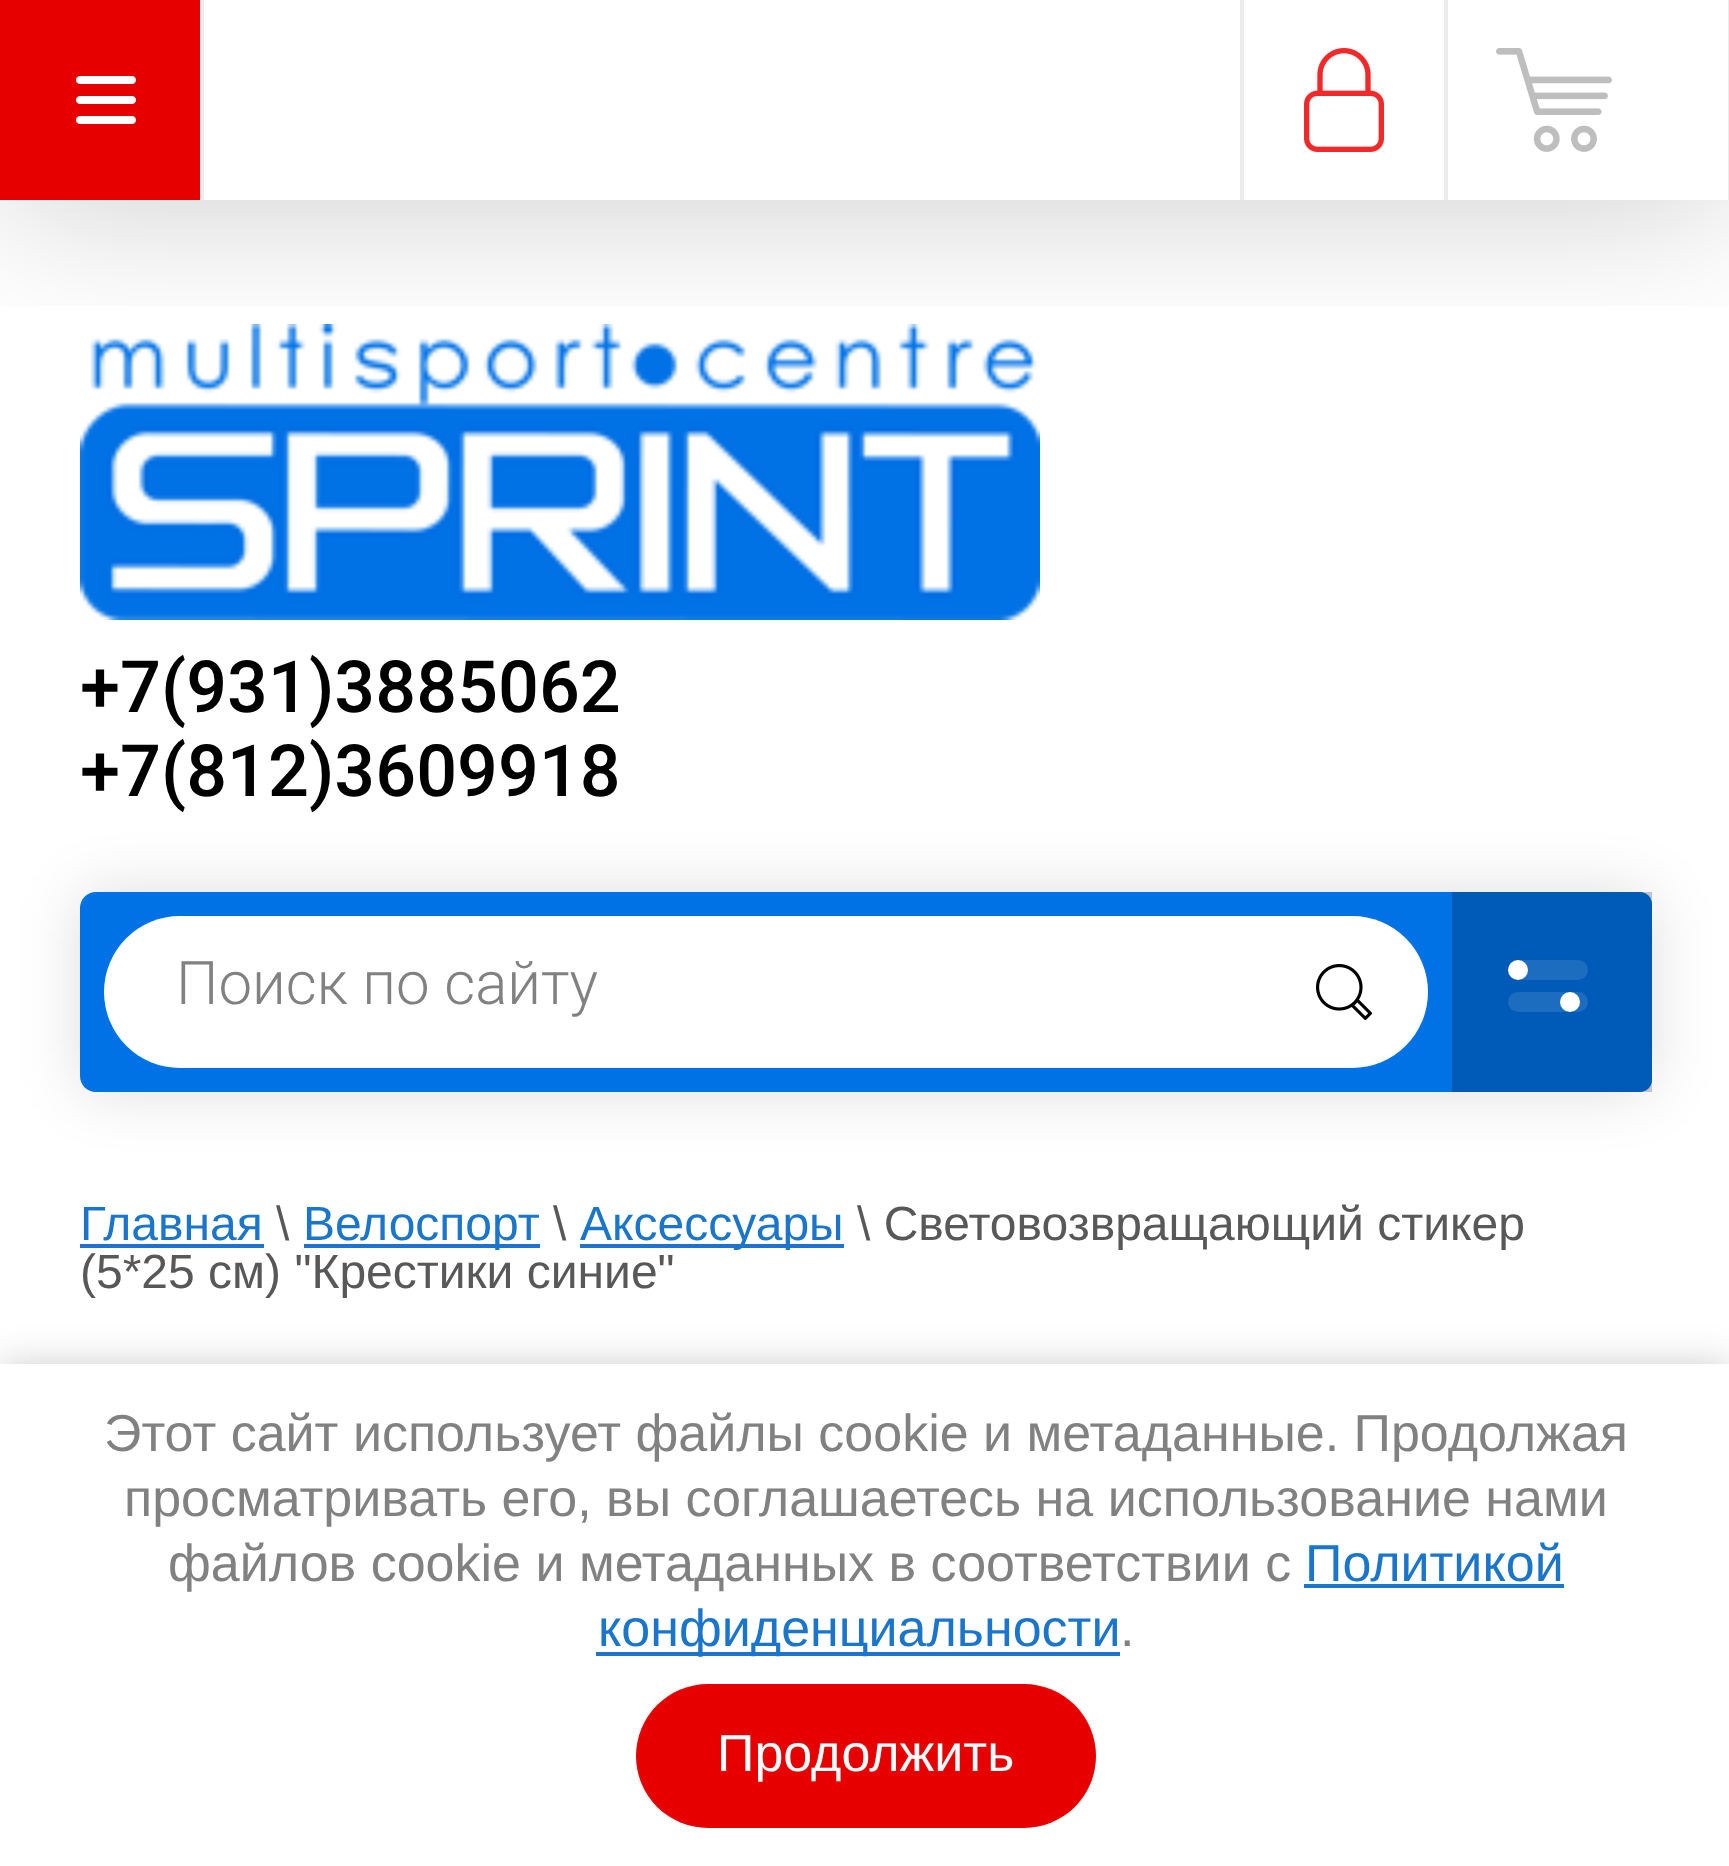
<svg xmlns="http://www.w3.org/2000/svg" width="1729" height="1866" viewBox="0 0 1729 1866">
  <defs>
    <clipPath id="clip1"><path d="M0 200h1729v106H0z"/></clipPath>
  </defs>
  <rect width="100%" height="100%" fill="#fff"/>
  <image x="80" y="324" width="960" height="296" href="img/4.png"/>
  <g clip-path="url(#clip1)">
    <path d="M0 4h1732v200H0z" fill="#00000033" filter="blur(80px)"/>
  </g>
  <path d="M0 0h200v200H0z" fill="#e60100"/>
  <image x="76" y="76" width="60" height="48" href="img/1.png"/>
  <path d="M200 0h4v200H200z" fill="#ececec"/>
  <path d="M1240 0h4v200H1240z" fill="#ececec"/>
  <path d="M1444 0h4v200H1444z" fill="#ececec"/>
  <image x="1304" y="48" width="80" height="104" href="img/2.png"/>
  <path d="M1728 0h1v200H1728z" fill="#ececec"/>
  <image x="1496" y="48" width="116" height="104" href="img/3.png"/>
  <rect x="80" y="892" width="1572" height="200" rx="16" fill="#00000021" filter="blur(30px)"/>
  <path d="M96 892H1640C1646.5 892 1652 897.5 1652 904V1080C1652 1086.5 1646.5 1092 1640 1092H96C87 1092 80 1085 80 1076V908C80 899 87 892 96 892Z" fill="#0072e6"/>
  <rect x="104" y="916" width="1324" height="152" rx="76" fill="#fff"/>
  <image x="1316" y="964" width="56" height="56" href="img/5.png"/>
  <path d="M1452 892h200v200H1452z" fill="#00000033"/>
  <rect x="1508" y="960" width="80" height="20" rx="10" fill="#1c6dbf"/>
  <circle cx="1518" cy="970" r="10" fill="#fff"/>
  <rect x="1508" y="992" width="80" height="20" rx="10" fill="#1c6dbf"/>
  <circle cx="1570" cy="1002" r="10" fill="#fff"/>
  <path d="M80 1244h184v4H80z" fill="#1a75cc"/>
  <path d="M304 1244h236v4H304z" fill="#1a75cc"/>
  <path d="M580 1244h264v4H580z" fill="#1a75cc"/>
  <path d="M0 1368h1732v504H0z" fill="#0000003b" filter="blur(20px)"/>
  <path d="M0 1364h1729v502H0z" fill="#fff"/>
  <path d="M1304 1584h260v4H1304z" fill="#1a75cc"/>
  <path d="M596 1652h524v4H596z" fill="#1a75cc"/>
  <rect x="636" y="1684" width="460" height="144" rx="72" fill="#e60100"/>
  <g font-family="Roboto" font-size="72" font-weight="500" fill="#000">
    <text x="80" y="712">+7(931)3885062</text>
    <text x="80" y="796">+7(812)3609918</text>
  </g>
  <text x="176" y="1004" font-family="Roboto" font-size="60" font-weight="300" fill="#818181">Поиск по сайту</text>
  <text x="80" y="1240" font-family="Liberation Sans" font-size="48" fill="#1a75cc">Главная</text>
  <text x="276" y="1240" font-family="Liberation Sans" font-size="48" fill="#585858">\</text>
  <text x="303" y="1240" font-family="Liberation Sans" font-size="48" fill="#1a75cc">Велоспорт</text>
  <text x="553" y="1240" font-family="Liberation Sans" font-size="48" fill="#585858">\</text>
  <text x="580" y="1240" font-family="Liberation Sans" font-size="48" fill="#1a75cc">Аксессуары</text>
  <g font-family="Liberation Sans" font-size="48" fill="#585858">
    <text x="857" y="1240">\ Световозвращающий стикер</text>
    <text x="80" y="1288">(5*25 см) "Крестики синие"</text>
  </g>
  <g font-family="Liberation Sans" font-size="52" fill="#818181">
    <text x="104" y="1451">Этот сайт использует файлы cookie и метаданные. Продолжая</text>
    <text x="124" y="1516">просматривать его, вы соглашаетесь на использование нами</text>
    <text x="168" y="1581">файлов cookie и метаданных в соответствии с</text>
  </g>
  <g font-family="Liberation Sans" font-size="52" fill="#1a75cc">
    <text x="1305" y="1581">Политикой</text>
    <text x="598" y="1646">конфиденциальности</text>
  </g>
  <text x="1120" y="1646" font-family="Liberation Sans" font-size="52" fill="#818181">.</text>
  <text x="717" y="1771" font-family="Liberation Sans" font-size="52" fill="#fff">Продолжить</text>
</svg>
